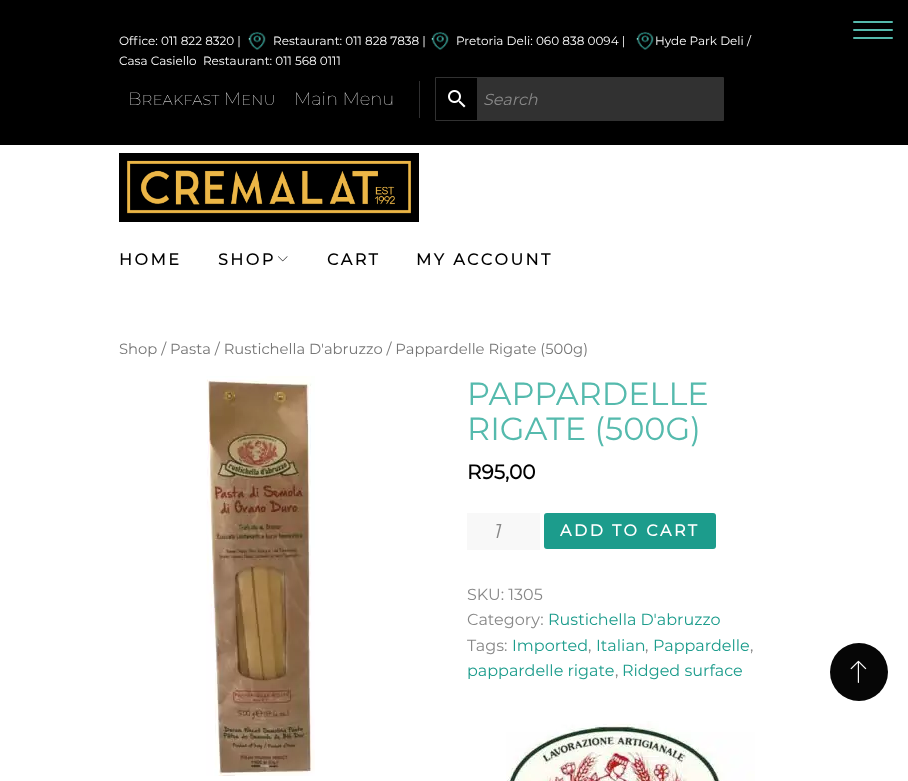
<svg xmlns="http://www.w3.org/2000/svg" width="908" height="781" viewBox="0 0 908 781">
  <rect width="100%" height="100%" fill="#fff"/>
  <path d="M0 0h908v145H0z" fill="#000"/>
  <rect x="853" y="29" width="40" height="2" rx="1" fill="#55baad"/>
  <rect x="853" y="21" width="40" height="2" rx="1" fill="#55baad"/>
  <rect x="853" y="37" width="40" height="2" rx="1" fill="#55baad"/>
  <image x="248" y="32" width="18" height="18" href="img/1.png"/>
  <image x="431" y="32" width="18" height="18" href="img/2.png"/>
  <image x="636" y="32" width="18" height="18" href="img/2.png"/>
  <path d="M419 81h1v37H419z" fill="#2f2f30"/>
  <path d="M435.5 77.5h288v43H435.5z" fill="none" stroke="#313131"/>
  <image x="448" y="90" width="18" height="18" href="img/3.png"/>
  <path d="M477 78h246v42H477z" fill="#313131"/>
  <image x="119" y="153" width="300" height="69" href="img/4.png"/>
  <image x="278" y="256" width="10" height="6" href="img/5.png"/>
  <image x="206" y="376" width="109" height="400" href="img/6.png"/>
  <path d="M467 513h73v37H467z" fill="#f8f8f8"/>
  <rect x="544" y="513" width="172" height="36" rx="3" fill="#1c9c8c"/>
  <image x="506" y="721" width="249" height="60" href="img/7.png"/>
  <circle cx="859" cy="672" r="29" fill="#060606"/>
  <image x="850" y="660" width="17" height="23" href="img/8.png"/>
  <g font-family="Montserrat" font-size="12" fill="#fff">
    <text x="119" y="45">Office: 011 822 8320 |</text>
    <text x="273" y="45">Restaurant: 011 828 7838 |</text>
    <text x="456" y="45">Pretoria Deli: 060 838 0094 |</text>
    <text x="655" y="45">Hyde Park Deli /</text>
    <text x="119" y="65" xml:space="preserve">Casa Casiello  Restaurant: 011 568 0111</text>
  </g>
  <text x="128" y="105" font-family="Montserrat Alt" font-size="18" font-weight="100" fill="#fff">Breakfast Menu</text>
  <text x="294" y="105" font-family="Montserrat" font-size="18" font-weight="100" fill="#fff">Main Menu</text>
  <text x="483" y="105" font-family="Montserrat" font-size="16" font-style="italic" fill="#888">Search</text>
  <g font-family="Montserrat" font-size="16" font-weight="bold" letter-spacing="2.5" fill="#000">
    <text x="119" y="265">HOME</text>
    <text x="218" y="265">SHOP</text>
    <text x="327" y="265">CART</text>
    <text x="416" y="265">MY ACCOUNT</text>
  </g>
  <text x="119" y="354" font-family="Montserrat" font-size="14.75" fill="#767676">Shop / Pasta / Rustichella D'abruzzo / Pappardelle Rigate (500g)</text>
  <g font-family="Montserrat" font-size="32" fill="#55baad">
    <text x="467" y="405">PAPPARDELLE</text>
    <text x="467" y="440">RIGATE (500G)</text>
  </g>
  <text x="467" y="479" font-family="Montserrat" font-size="20" font-weight="bold" fill="#000">R95,00</text>
  <text x="493" y="538" font-family="Montserrat" font-size="20" font-style="italic" fill="#888">1</text>
  <text x="560" y="536" font-family="Montserrat" font-size="16" font-weight="bold" letter-spacing="2.5" fill="#fff">ADD TO CART</text>
  <g font-family="Montserrat" font-size="16" fill="#888">
    <text x="467" y="600">SKU: 1305</text>
    <text x="467" y="625">Category:</text>
  </g>
  <text x="548" y="625" font-family="Montserrat" font-size="16" fill="#1c9c8c">Rustichella D'abruzzo</text>
  <text x="467" y="651" font-family="Montserrat" font-size="16" fill="#888">Tags:</text>
  <text x="512" y="651" font-family="Montserrat" font-size="16" fill="#1c9c8c">Imported</text>
  <text x="588" y="651" font-family="Montserrat" font-size="16" fill="#888">,</text>
  <text x="596" y="651" font-family="Montserrat" font-size="16" fill="#1c9c8c">Italian</text>
  <text x="645" y="651" font-family="Montserrat" font-size="16" fill="#888">,</text>
  <text x="653" y="651" font-family="Montserrat" font-size="16" fill="#1c9c8c">Pappardelle</text>
  <text x="750" y="651" font-family="Montserrat" font-size="16" fill="#888">,</text>
  <text x="467" y="676" font-family="Montserrat" font-size="16" fill="#1c9c8c">pappardelle rigate</text>
  <text x="615" y="676" font-family="Montserrat" font-size="16" fill="#888">,</text>
  <text x="622" y="676" font-family="Montserrat" font-size="16" fill="#1c9c8c">Ridged surface</text>
</svg>
